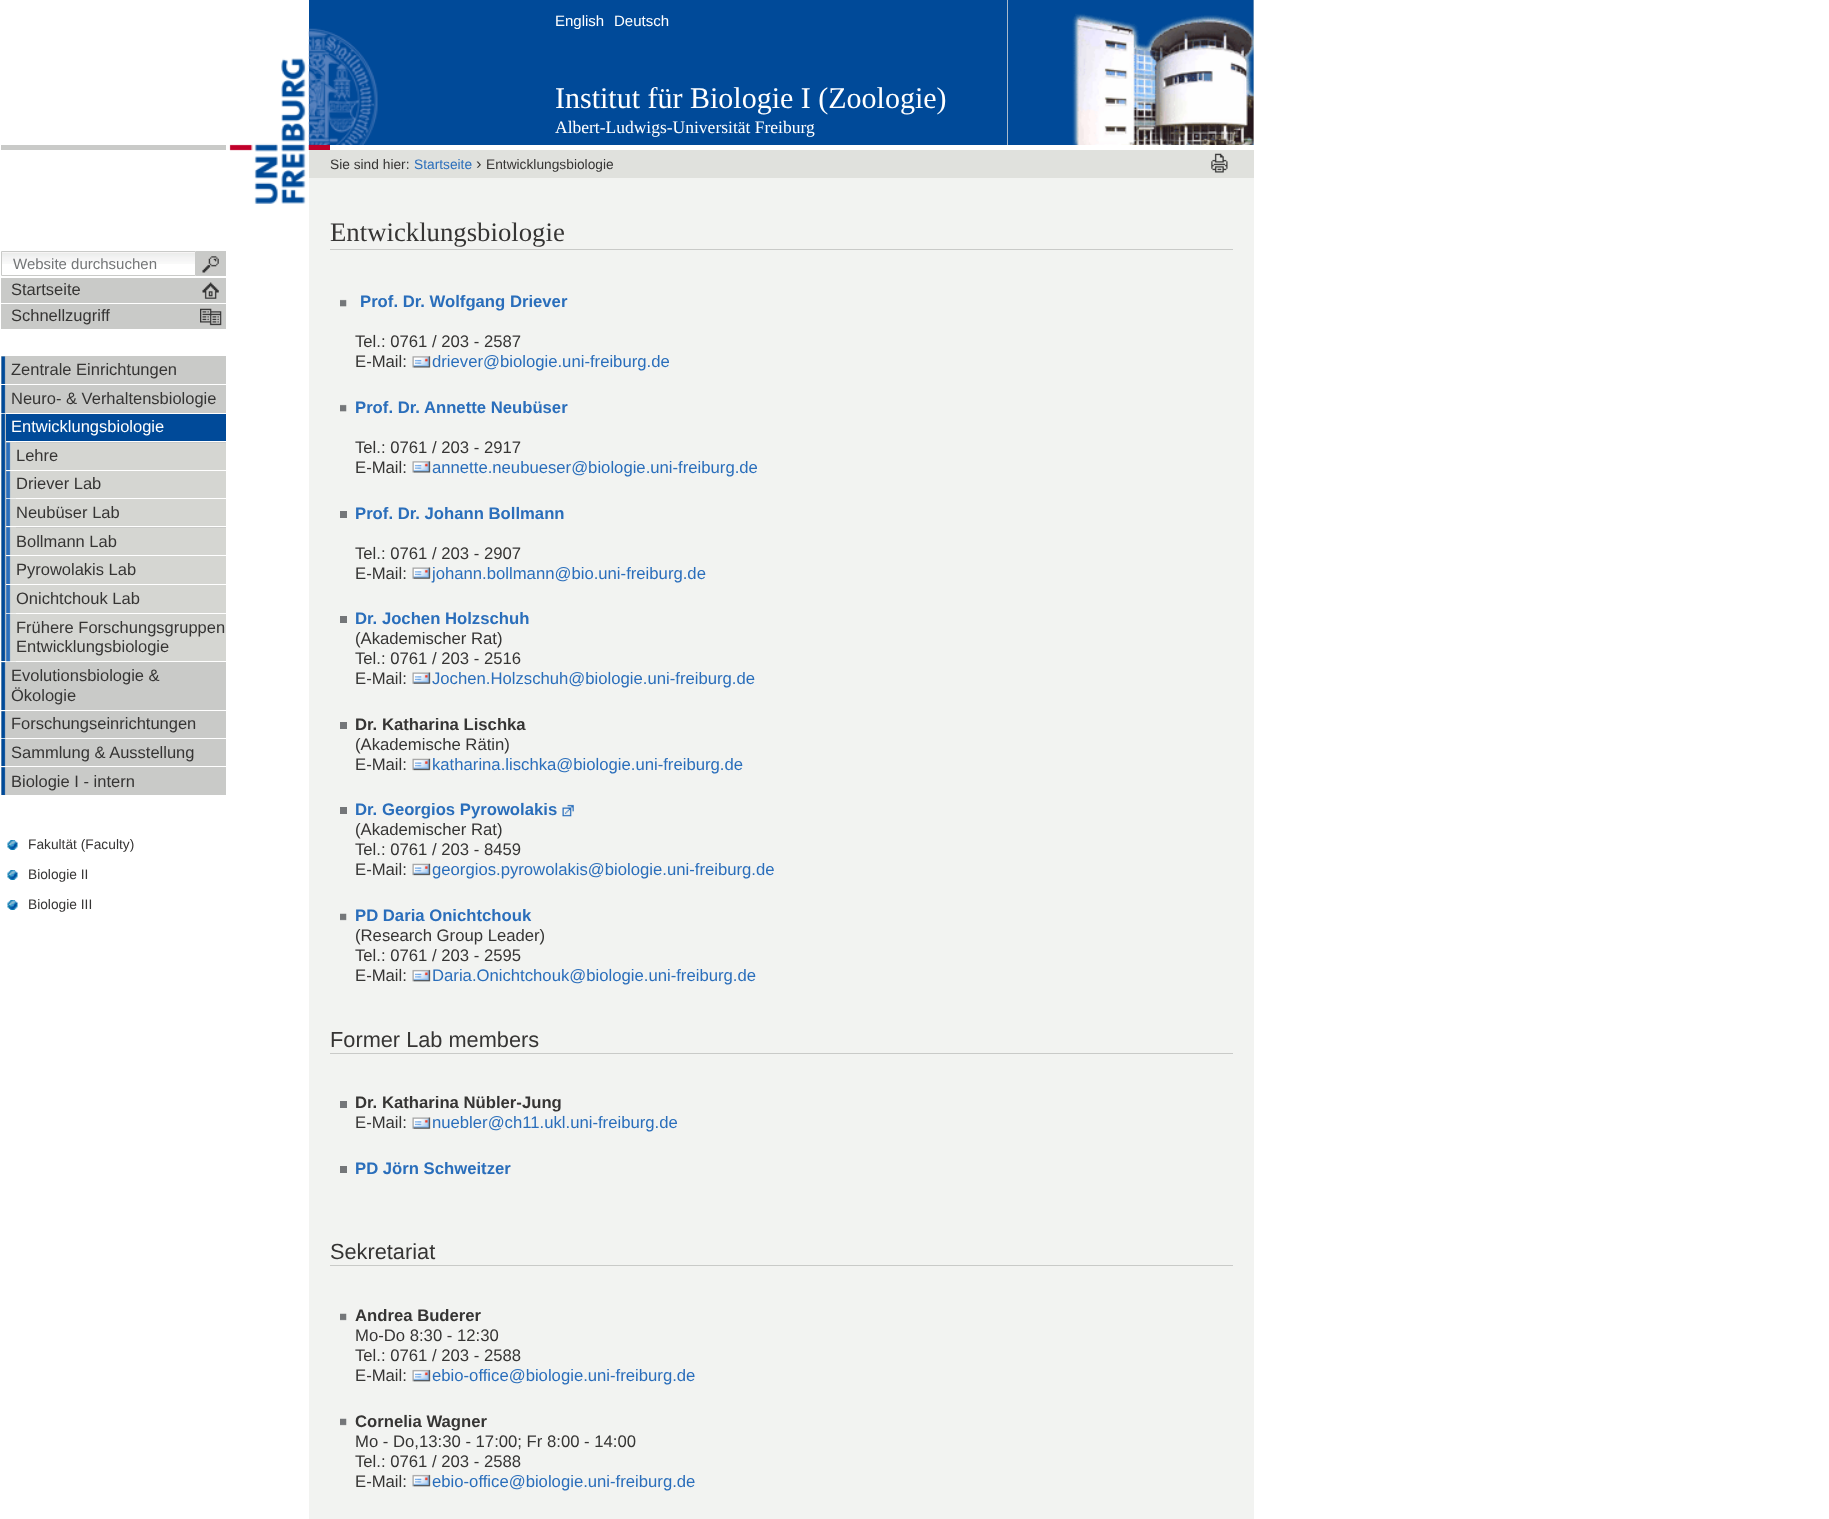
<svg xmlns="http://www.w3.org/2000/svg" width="1829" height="1519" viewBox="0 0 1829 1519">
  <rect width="100%" height="100%" fill="#fff"/>
  <path d="M308 145h22v5H308z" fill="#c1002a"/>
  <image x="229" y="58" width="80" height="146" href="img/1.png"/>
  <path d="M309 178h945v1341H309z" fill="#f2f3f1"/>
  <path d="M309 0h698v145H309z" fill="#004a99"/>
  <image x="308" y="28" width="70" height="117" href="img/2.png"/>
  <path d="M1007 0h247v145H1007z" fill="#e2e1dd"/>
  <image x="1007" y="0" width="247" height="145" href="img/3.png"/>
  <path d="M309 150h945v28H309z" fill="#e0e1dd"/>
  <image x="1211" y="153" width="17" height="20" href="img/4.png"/>
  <path d="M330 249h903v1H330z" fill="#c9cac8"/>
  <image x="340" y="299" width="7" height="8" href="img/5.png"/>
  <image x="412" y="356" width="19" height="12" href="img/6.png"/>
  <image x="340" y="404" width="7" height="8" href="img/5.png"/>
  <image x="412" y="461" width="19" height="12" href="img/6.png"/>
  <path d="M340 511h7v7H340z" fill="#747679"/>
  <image x="412" y="567" width="19" height="12" href="img/7.png"/>
  <path d="M340 616h7v7H340z" fill="#747679"/>
  <image x="412" y="672" width="19" height="12" href="img/7.png"/>
  <path d="M340 722h7v7H340z" fill="#747679"/>
  <image x="412" y="758" width="19" height="13" href="img/8.png"/>
  <path d="M340 807h7v7H340z" fill="#747679"/>
  <image x="562" y="804" width="12" height="13" href="img/9.png"/>
  <image x="412" y="863" width="19" height="13" href="img/8.png"/>
  <image x="340" y="913" width="7" height="8" href="img/10.png"/>
  <image x="412" y="969" width="19" height="13" href="img/11.png"/>
  <path d="M330 1053h903v1H330z" fill="#c9cac8"/>
  <path d="M340 1101h7v7H340z" fill="#747679"/>
  <image x="412" y="1117" width="19" height="12" href="img/7.png"/>
  <path d="M340 1166h7v7H340z" fill="#747679"/>
  <path d="M330 1265h903v1H330z" fill="#c9cac8"/>
  <image x="340" y="1313" width="7" height="8" href="img/10.png"/>
  <image x="412" y="1369" width="19" height="13" href="img/11.png"/>
  <image x="340" y="1418" width="7" height="8" href="img/10.png"/>
  <image x="412" y="1474" width="19" height="13" href="img/11.png"/>
  <path d="M1 145h225v5H1z" fill="#c9cac8"/>
  <image x="2" y="252" width="193" height="12" href="img/12.png"/>
  <path d="M1.5 251.5h194v24H1.5z" fill="none" stroke="#c9cac8"/>
  <path d="M196 251h30v25H196z" fill="#c9cac8"/>
  <image x="202" y="256" width="17" height="17" href="img/13.png"/>
  <path d="M1 278h225v25H1z" fill="#c9cac8"/>
  <image x="202" y="282" width="17" height="17" href="img/14.png"/>
  <path d="M1 304h225v25H1z" fill="#c9cac8"/>
  <image x="200" y="308" width="22" height="18" href="img/15.png"/>
  <path d="M1 356h225v28H1z" fill="#c9cac8"/>
  <image x="1" y="356" width="5" height="28" href="img/16.png"/>
  <path d="M1 385h225v28H1z" fill="#c9cac8"/>
  <image x="1" y="385" width="5" height="28" href="img/17.png"/>
  <path d="M1 414h225v296H1z" fill="#c9cac8"/>
  <image x="1" y="413" width="5" height="250" href="img/18.png"/>
  <path d="M1 661h225v1H1z" fill="#fff"/>
  <path d="M6 414h220v27H6z" fill="#004a99"/>
  <path d="M6 441h220v1H6z" fill="#fff"/>
  <image x="6" y="442" width="10" height="30" href="img/19.png"/>
  <path d="M6 470h220v1H6z" fill="#fff"/>
  <path d="M16 443h210v27H16z" fill="#d5d6d2"/>
  <image x="6" y="471" width="5" height="27" href="img/20.png"/>
  <path d="M6 498h220v1H6z" fill="#fff"/>
  <path d="M11 471h215v27H11z" fill="#d5d6d2"/>
  <image x="6" y="498" width="10" height="30" href="img/21.png"/>
  <path d="M6 526h220v1H6z" fill="#fff"/>
  <path d="M16 499h210v27H16z" fill="#d5d6d2"/>
  <image x="6" y="527" width="10" height="30" href="img/22.png"/>
  <path d="M6 555h220v1H6z" fill="#fff"/>
  <path d="M16 528h210v27H16z" fill="#d5d6d2"/>
  <image x="6" y="556" width="5" height="28" href="img/23.png"/>
  <path d="M6 584h220v1H6z" fill="#fff"/>
  <path d="M11 556h215v28H11z" fill="#d5d6d2"/>
  <image x="6" y="585" width="5" height="28" href="img/24.png"/>
  <path d="M6 613h220v1H6z" fill="#fff"/>
  <path d="M11 585h215v28H11z" fill="#d5d6d2"/>
  <image x="6" y="613" width="10" height="49" href="img/25.png"/>
  <path d="M16 614h210v47H16z" fill="#d5d6d2"/>
  <image x="1" y="662" width="5" height="48" href="img/26.png"/>
  <path d="M1 711h225v27H1z" fill="#c9cac8"/>
  <image x="1" y="711" width="5" height="27" href="img/27.png"/>
  <path d="M1 739h225v56H1z" fill="#c9cac8"/>
  <image x="1" y="738" width="5" height="30" href="img/28.png"/>
  <path d="M1 766h225v1H1z" fill="#fff"/>
  <image x="1" y="767" width="5" height="28" href="img/29.png"/>
  <image x="7" y="840" width="11" height="10" href="img/30.png"/>
  <image x="7" y="870" width="11" height="10" href="img/30.png"/>
  <image x="7" y="900" width="11" height="10" href="img/30.png"/>
  <g font-family="Liberation Sans" font-size="15" fill="#fff">
    <text x="555" y="26">English</text>
    <text x="614" y="26">Deutsch</text>
  </g>
  <text x="555" y="108" font-family="Liberation Serif" font-size="30" fill="#fff">Institut für Biologie I (Zoologie)</text>
  <text x="555" y="133" font-family="Liberation Serif" font-size="17.5" fill="#fff">Albert-Ludwigs-Universität Freiburg</text>
  <text x="330" y="169" font-family="Liberation Sans" font-size="13.75" fill="#363534">Sie sind hier:</text>
  <text x="414" y="169" font-family="Liberation Sans" font-size="13.75" fill="#2a6ebb">Startseite</text>
  <text x="476" y="169" font-family="Liberation Sans" font-size="16.5" fill="#363534">›</text>
  <text x="486" y="169" font-family="Liberation Sans" font-size="13.75" fill="#363534">Entwicklungsbiologie</text>
  <text x="330" y="241" font-family="Liberation Serif" font-size="26.75" fill="#363534">Entwicklungsbiologie</text>
  <text x="360" y="307" font-family="Liberation Sans" font-size="16.7" font-weight="bold" fill="#2a6ebb">Prof. Dr. Wolfgang Driever</text>
  <g font-family="Liberation Sans" font-size="16.7" fill="#363534">
    <text x="355" y="347">Tel.: 0761 / 203 - 2587</text>
    <text x="355" y="367">E-Mail:</text>
  </g>
  <text x="432" y="367" font-family="Liberation Sans" font-size="16.7" fill="#2a6ebb">driever@biologie.uni-freiburg.de</text>
  <text x="355" y="413" font-family="Liberation Sans" font-size="16.7" font-weight="bold" fill="#2a6ebb">Prof. Dr. Annette Neubüser</text>
  <g font-family="Liberation Sans" font-size="16.7" fill="#363534">
    <text x="355" y="453">Tel.: 0761 / 203 - 2917</text>
    <text x="355" y="473">E-Mail:</text>
  </g>
  <text x="432" y="473" font-family="Liberation Sans" font-size="16.7" fill="#2a6ebb">annette.neubueser@biologie.uni-freiburg.de</text>
  <text x="355" y="519" font-family="Liberation Sans" font-size="16.7" font-weight="bold" fill="#2a6ebb">Prof. Dr. Johann Bollmann</text>
  <g font-family="Liberation Sans" font-size="16.7" fill="#363534">
    <text x="355" y="559">Tel.: 0761 / 203 - 2907</text>
    <text x="355" y="579">E-Mail:</text>
  </g>
  <text x="432" y="579" font-family="Liberation Sans" font-size="16.7" fill="#2a6ebb">johann.bollmann@bio.uni-freiburg.de</text>
  <text x="355" y="624" font-family="Liberation Sans" font-size="16.7" font-weight="bold" fill="#2a6ebb">Dr. Jochen Holzschuh</text>
  <g font-family="Liberation Sans" font-size="16.7" fill="#363534">
    <text x="355" y="644">(Akademischer Rat)</text>
    <text x="355" y="664">Tel.: 0761 / 203 - 2516</text>
    <text x="355" y="684">E-Mail:</text>
  </g>
  <text x="432" y="684" font-family="Liberation Sans" font-size="16.7" fill="#2a6ebb">Jochen.Holzschuh@biologie.uni-freiburg.de</text>
  <text x="355" y="730" font-family="Liberation Sans" font-size="16.7" font-weight="bold" fill="#363534">Dr. Katharina Lischka</text>
  <g font-family="Liberation Sans" font-size="16.7" fill="#363534">
    <text x="355" y="750">(Akademische Rätin)</text>
    <text x="355" y="770">E-Mail:</text>
  </g>
  <text x="432" y="770" font-family="Liberation Sans" font-size="16.7" fill="#2a6ebb">katharina.lischka@biologie.uni-freiburg.de</text>
  <text x="355" y="815" font-family="Liberation Sans" font-size="16.7" font-weight="bold" fill="#2a6ebb">Dr. Georgios Pyrowolakis</text>
  <g font-family="Liberation Sans" font-size="16.7" fill="#363534">
    <text x="355" y="835">(Akademischer Rat)</text>
    <text x="355" y="855">Tel.: 0761 / 203 - 8459</text>
    <text x="355" y="875">E-Mail:</text>
  </g>
  <text x="432" y="875" font-family="Liberation Sans" font-size="16.7" fill="#2a6ebb">georgios.pyrowolakis@biologie.uni-freiburg.de</text>
  <text x="355" y="921" font-family="Liberation Sans" font-size="16.7" font-weight="bold" fill="#2a6ebb">PD Daria Onichtchouk</text>
  <g font-family="Liberation Sans" font-size="16.7" fill="#363534">
    <text x="355" y="941">(Research Group Leader)</text>
    <text x="355" y="961">Tel.: 0761 / 203 - 2595</text>
    <text x="355" y="981">E-Mail:</text>
  </g>
  <text x="432" y="981" font-family="Liberation Sans" font-size="16.7" fill="#2a6ebb">Daria.Onichtchouk@biologie.uni-freiburg.de</text>
  <text x="330" y="1047" font-family="Liberation Sans" font-size="21.75" fill="#363534">Former Lab members</text>
  <text x="355" y="1108" font-family="Liberation Sans" font-size="16.7" font-weight="bold" fill="#363534">Dr. Katharina Nübler-Jung</text>
  <text x="355" y="1128" font-family="Liberation Sans" font-size="16.7" fill="#363534">E-Mail:</text>
  <text x="432" y="1128" font-family="Liberation Sans" font-size="16.7" fill="#2a6ebb">nuebler@ch11.ukl.uni-freiburg.de</text>
  <text x="355" y="1174" font-family="Liberation Sans" font-size="16.7" font-weight="bold" fill="#2a6ebb">PD Jörn Schweitzer</text>
  <text x="330" y="1259" font-family="Liberation Sans" font-size="21.75" fill="#363534">Sekretariat</text>
  <text x="355" y="1321" font-family="Liberation Sans" font-size="16.7" font-weight="bold" fill="#363534">Andrea Buderer</text>
  <g font-family="Liberation Sans" font-size="16.7" fill="#363534">
    <text x="355" y="1341">Mo-Do 8:30 - 12:30</text>
    <text x="355" y="1361">Tel.: 0761 / 203 - 2588</text>
    <text x="355" y="1381">E-Mail:</text>
  </g>
  <text x="432" y="1381" font-family="Liberation Sans" font-size="16.7" fill="#2a6ebb">ebio-office@biologie.uni-freiburg.de</text>
  <text x="355" y="1427" font-family="Liberation Sans" font-size="16.7" font-weight="bold" fill="#363534">Cornelia Wagner</text>
  <g font-family="Liberation Sans" font-size="16.7" fill="#363534">
    <text x="355" y="1447">Mo - Do,13:30 - 17:00; Fr 8:00 - 14:00</text>
    <text x="355" y="1467">Tel.: 0761 / 203 - 2588</text>
    <text x="355" y="1487">E-Mail:</text>
  </g>
  <text x="432" y="1487" font-family="Liberation Sans" font-size="16.7" fill="#2a6ebb">ebio-office@biologie.uni-freiburg.de</text>
  <text x="13" y="269" font-family="Liberation Sans" font-size="15" fill="#747678">Website durchsuchen</text>
  <g font-family="Liberation Sans" font-size="16.5" fill="#363534">
    <text x="11" y="295">Startseite</text>
    <text x="11" y="321">Schnellzugriff</text>
    <text x="11" y="375">Zentrale Einrichtungen</text>
    <text x="11" y="404">Neuro- &amp; Verhaltensbiologie</text>
  </g>
  <text x="11" y="432" font-family="Liberation Sans" font-size="16.5" fill="#fff">Entwicklungsbiologie</text>
  <g font-family="Liberation Sans" font-size="16.5" fill="#363534">
    <text x="16" y="461">Lehre</text>
    <text x="16" y="489">Driever Lab</text>
    <text x="16" y="518">Neubüser Lab</text>
    <text x="16" y="547">Bollmann Lab</text>
    <text x="16" y="575">Pyrowolakis Lab</text>
    <text x="16" y="604">Onichtchouk Lab</text>
    <text x="16" y="633">Frühere Forschungsgruppen</text>
    <text x="16" y="652">Entwicklungsbiologie</text>
    <text x="11" y="681">Evolutionsbiologie &amp;</text>
    <text x="11" y="701">Ökologie</text>
    <text x="11" y="729">Forschungseinrichtungen</text>
    <text x="11" y="758">Sammlung &amp; Ausstellung</text>
    <text x="11" y="787">Biologie I - intern</text>
  </g>
  <g font-family="Liberation Sans" font-size="13.75" fill="#363534">
    <text x="28" y="849">Fakultät (Faculty)</text>
    <text x="28" y="879">Biologie II</text>
    <text x="28" y="909">Biologie III</text>
  </g>
</svg>
